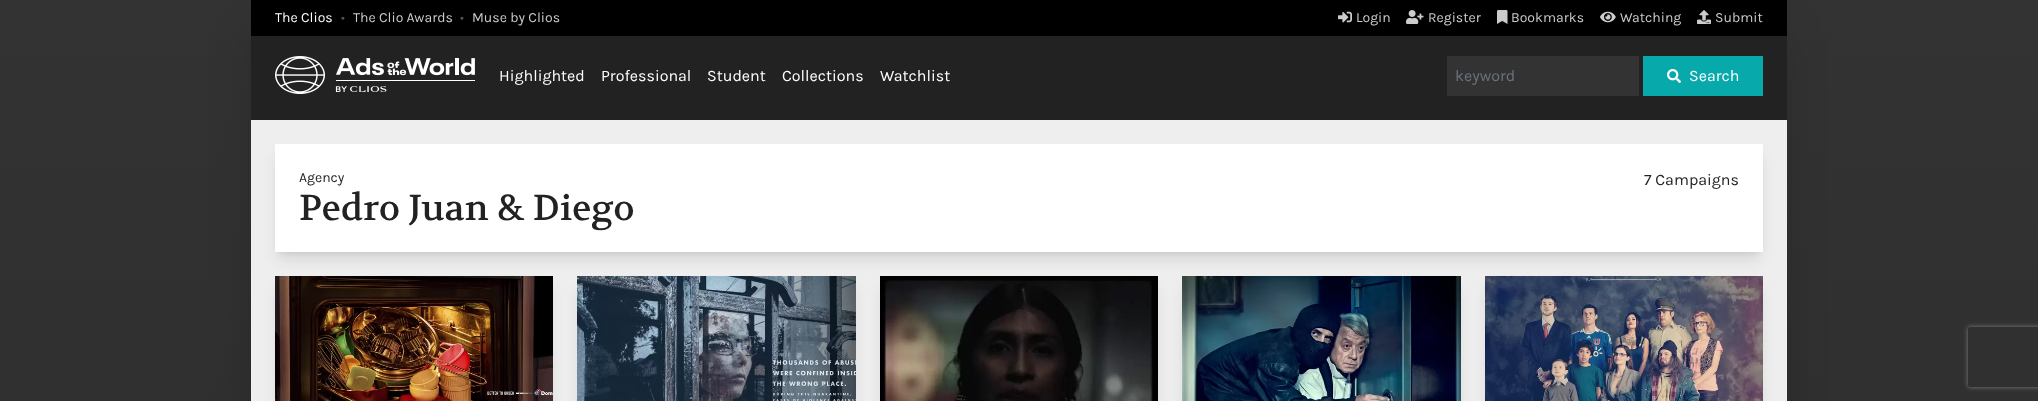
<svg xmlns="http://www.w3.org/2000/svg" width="2038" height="401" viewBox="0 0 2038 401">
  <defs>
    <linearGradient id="g1" gradientUnits="userSpaceOnUse" x1="1019" y1="0" x2="1019" y2="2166"><stop offset="0" stop-color="#333"/><stop offset="1" stop-color="#222"/></linearGradient>
    <clipPath id="clip1"><path d="M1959 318H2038V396H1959ZM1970 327H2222C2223 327 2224 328 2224 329V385C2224 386 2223 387 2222 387H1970C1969 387 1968 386 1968 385V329C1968 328 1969 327 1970 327Z" clip-rule="evenodd"/></clipPath>
  </defs>
  <rect width="100%" height="100%" fill="#fff"/>
  <path d="M0 0h2038v401H0z" fill="url(#g1)"/>
  <path d="M263 37h1512v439H263z" fill="#00000040" filter="blur(25px)"/>
  <path d="M251 120h1536v281H251z" fill="#eee"/>
  <path d="M251 0h1536v36H251z" fill="#000"/>
  <image x="1338" y="11" width="14" height="12" href="img/1.png"/>
  <image x="1406" y="10" width="18" height="14" href="img/2.png"/>
  <image x="1497" y="10" width="11" height="14" href="img/3.png"/>
  <image x="1600" y="11" width="16" height="12" href="img/4.png"/>
  <image x="1697" y="10" width="14" height="14" href="img/5.png"/>
  <path d="M251 36h1536v84H251z" fill="#222"/>
  <image x="275" y="56" width="200" height="38" href="img/6.png"/>
  <path d="M1447 56h192v40H1447z" fill="#333"/>
  <path d="M1643 56h120v40H1643z" fill="#07a9aa"/>
  <image x="1667" y="69" width="14" height="14" href="img/7.png"/>
  <path d="M279 152h1480v100H279z" fill="#0000001a" filter="blur(3px)"/>
  <path d="M278 157h1482v102H278z" fill="#0000001a" filter="blur(7.5px)"/>
  <path d="M275 144h1488v108H275z" fill="#fff"/>
  <path d="M278 289h272v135H278z" fill="#0000001a" filter="blur(7.5px)"/>
  <image x="275" y="276" width="278" height="125" href="img/8.png"/>
  <path d="M580 289h273v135H580z" fill="#0000001a" filter="blur(7.5px)"/>
  <image x="577" y="276" width="279" height="125" href="img/9.png"/>
  <path d="M883 289h272v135H883z" fill="#0000001a" filter="blur(7.5px)"/>
  <image x="880" y="276" width="278" height="125" href="img/10.png"/>
  <path d="M1185 289h273v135H1185z" fill="#0000001a" filter="blur(7.5px)"/>
  <image x="1182" y="276" width="279" height="125" href="img/11.png"/>
  <path d="M1488 289h272v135H1488z" fill="#0000001a" filter="blur(7.5px)"/>
  <image x="1485" y="276" width="278" height="125" href="img/12.png"/>
  <g clip-path="url(#clip1)">
    <rect x="1968" y="327" width="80" height="60" rx="2" fill="#808080" filter="blur(2.5px)"/>
  </g>
  <text x="275" y="22" font-family="Karla" font-size="14" fill="#fff">The Clios</text>
  <text x="341" y="22" font-family="Karla" font-size="14" fill="#555">•</text>
  <text x="353" y="22" font-family="Karla" font-size="14" fill="#ccc">The Clio Awards</text>
  <text x="460" y="22" font-family="Karla" font-size="14" fill="#555">•</text>
  <g font-family="Karla" font-size="14" fill="#ccc">
    <text x="472" y="22">Muse by Clios</text>
    <text x="1356" y="22">Login</text>
    <text x="1428" y="22">Register</text>
    <text x="1511" y="22">Bookmarks</text>
    <text x="1620" y="22">Watching</text>
    <text x="1715" y="22">Submit</text>
  </g>
  <g font-family="Karla" font-size="16" fill="#fff">
    <text x="499" y="81">Highlighted</text>
    <text x="601" y="81">Professional</text>
    <text x="707" y="81">Student</text>
    <text x="782" y="81">Collections</text>
    <text x="880" y="81">Watchlist</text>
  </g>
  <text x="1455" y="81" font-family="Karla" font-size="16" fill="#6b7280">keyword</text>
  <text x="1689" y="81" font-family="Karla" font-size="16" fill="#fff">Search</text>
  <text x="299" y="182" font-family="Karla" font-size="14" fill="#222">Agency</text>
  <text x="299" y="220" font-family="Volkhov" font-size="36" fill="#222">Pedro Juan &amp; Diego</text>
  <text x="1644" y="185" font-family="Karla" font-size="16" fill="#222">7 Campaigns</text>
</svg>
